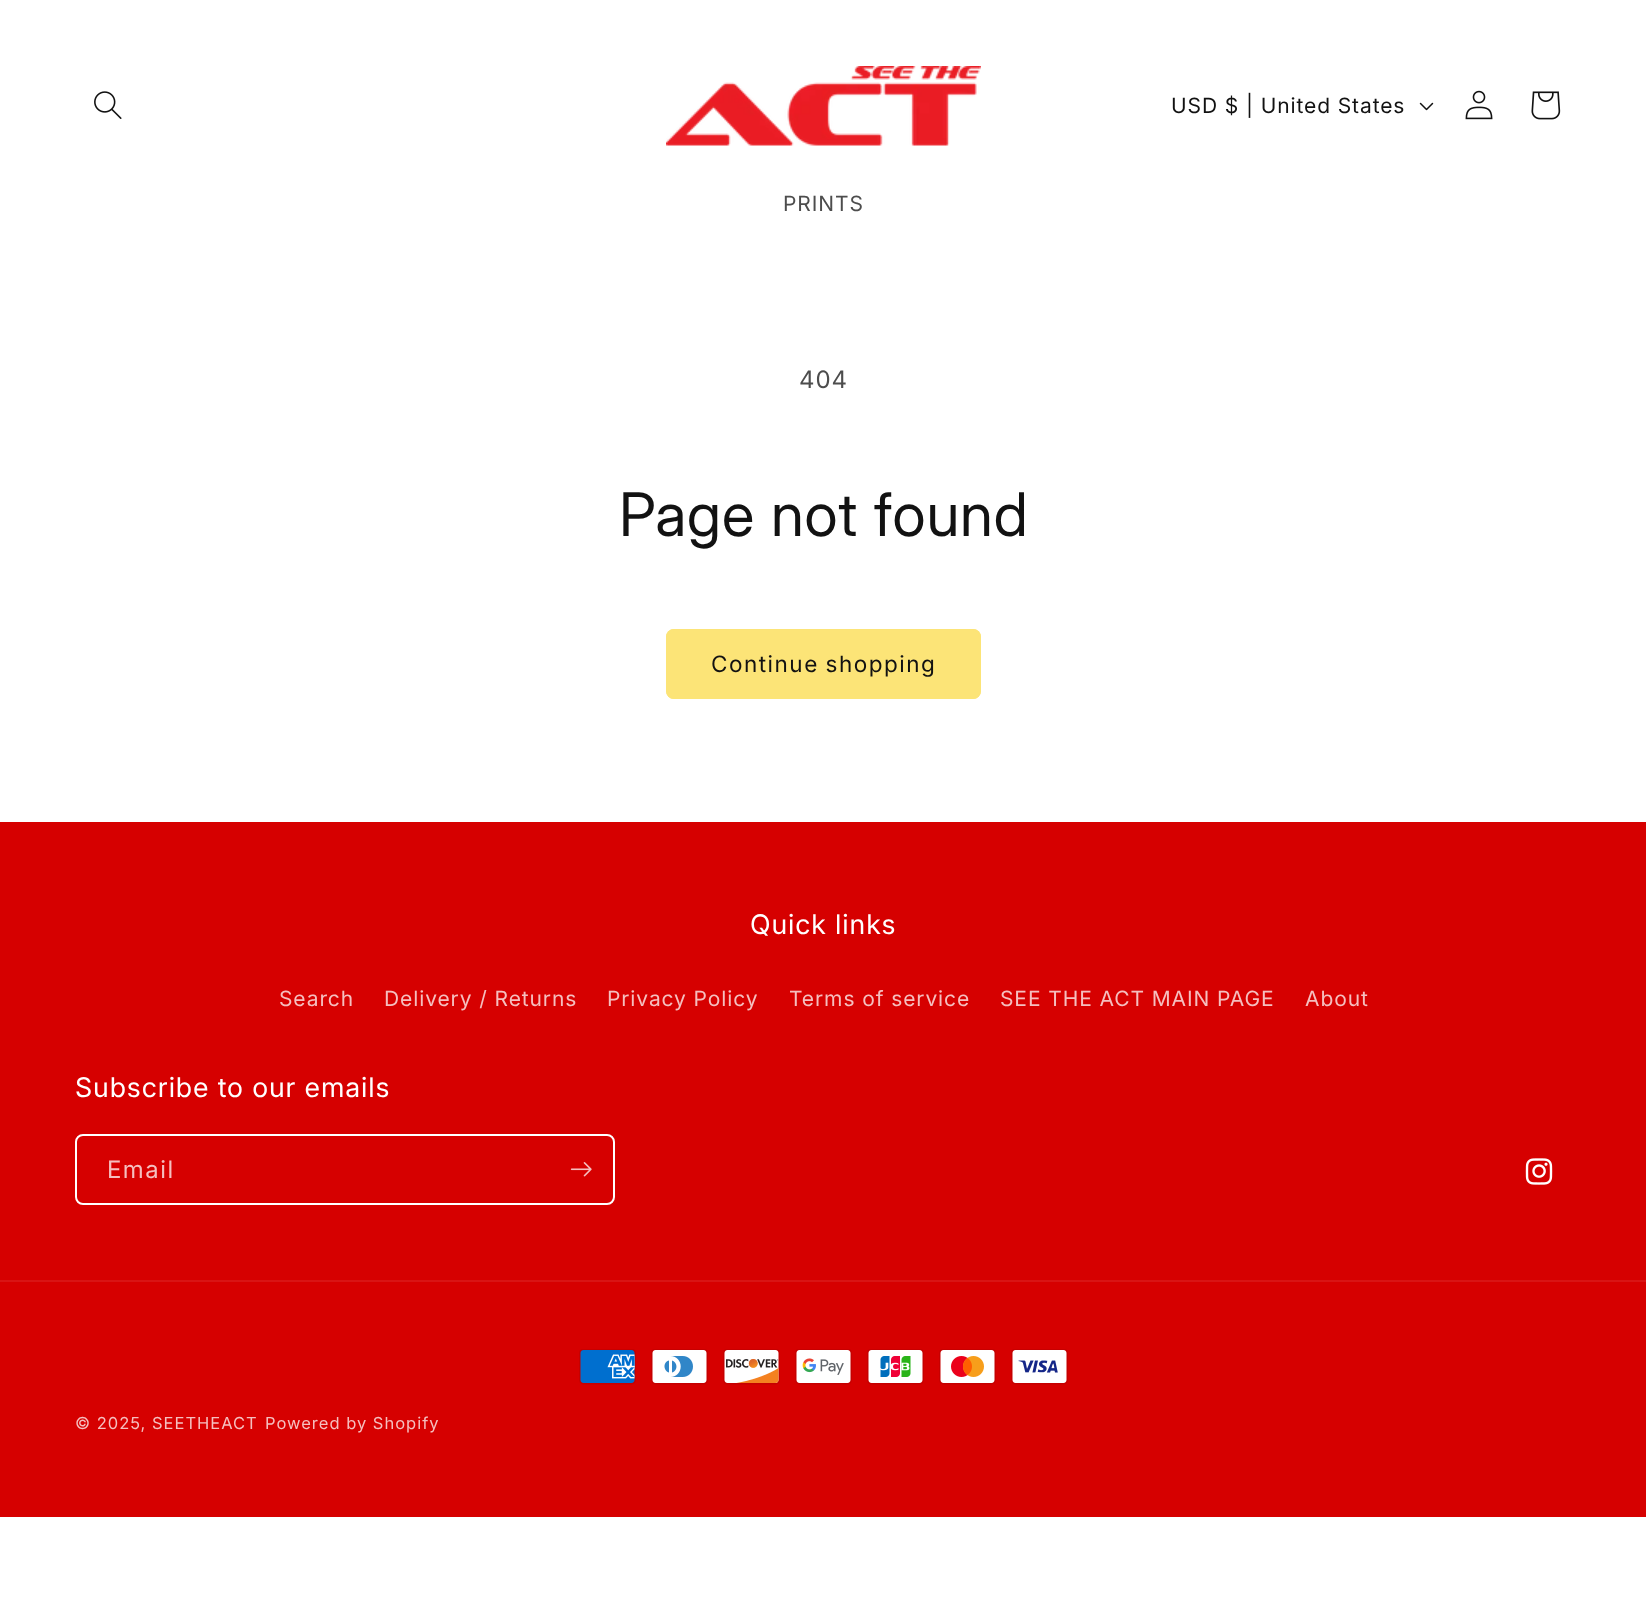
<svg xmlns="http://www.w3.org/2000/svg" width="1646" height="1621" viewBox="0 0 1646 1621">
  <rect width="100%" height="100%" fill="#fff"/>
  <image x="94" y="91" width="28" height="28" href="img/1.png"/>
  <image x="666" y="66" width="315" height="80" href="img/2.png"/>
  <image x="1419" y="102" width="15" height="9" href="img/3.png"/>
  <image x="1465" y="90" width="28" height="30" href="img/4.png"/>
  <image x="1531" y="91" width="30" height="29" href="img/5.png"/>
  <rect x="666" y="629" width="315" height="70" rx="8" fill="#fce477"/>
  <rect x="667" y="630" width="313" height="68" rx="7" fill="none" stroke="#fce477" stroke-width="2"/>
  <path d="M0 822h1646v695H0z" fill="#d60000"/>
  <rect x="76" y="1135" width="538" height="69" rx="7" fill="none" stroke="#fff" stroke-width="2"/>
  <image x="570" y="1162" width="22" height="15" href="img/6.png"/>
  <image x="1525" y="1158" width="28" height="27" href="img/7.png"/>
  <path d="M0 1280h1646v2H0z" fill="#d91414"/>
  <image x="579" y="1349" width="57" height="36" href="img/8.png"/>
  <image x="651" y="1349" width="57" height="36" href="img/9.png"/>
  <image x="723" y="1349" width="57" height="36" href="img/10.png"/>
  <image x="795" y="1349" width="57" height="36" href="img/11.png"/>
  <image x="867" y="1349" width="57" height="36" href="img/12.png"/>
  <image x="939" y="1349" width="57" height="36" href="img/13.png"/>
  <image x="1011" y="1349" width="57" height="36" href="img/14.png"/>
  <text x="1171" y="113" font-family="Inter" font-size="21" letter-spacing="0.9" fill="#121212">USD $ | United States</text>
  <text x="783" y="211" font-family="Inter" font-size="21" letter-spacing="0.9" fill="#4d4d4d">PRINTS</text>
  <text x="799" y="388" font-family="Inter" font-size="24" letter-spacing="0.9" fill="#4d4d4d">404</text>
  <text x="619" y="536" font-family="'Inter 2'" font-size="60" letter-spacing="0.9" fill="#121212">Page not found</text>
  <text x="711" y="672" word-spacing="-1" font-family="Inter" font-size="22.5" letter-spacing="1.5" fill="#121212">Continue shopping</text>
  <text x="750" y="934" font-family="'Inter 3'" font-size="27" letter-spacing="0.9" fill="#fff">Quick links</text>
  <g font-family="Inter" font-size="21" letter-spacing="0.9" fill="#f5bfbf">
    <text x="279" y="1006">Search</text>
    <text x="384" y="1006">Delivery / Returns</text>
    <text x="607" y="1006">Privacy Policy</text>
    <text x="789" y="1006">Terms of service</text>
    <text x="1000" y="1006">SEE THE ACT MAIN PAGE</text>
    <text x="1305" y="1006">About</text>
  </g>
  <text x="75" y="1097" font-family="'Inter 3'" font-size="27" letter-spacing="0.9" fill="#fff">Subscribe to our emails</text>
  <text x="107" y="1178" font-family="'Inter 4'" font-size="24" letter-spacing="1.5" fill="#f5bfbf">Email</text>
  <g font-family="Inter" font-size="16.5" letter-spacing="1" fill="#f5bfbf">
    <text x="75" y="1429">© 2025, SEETHEACT</text>
    <text x="265" y="1429">Powered by Shopify</text>
  </g>
</svg>
